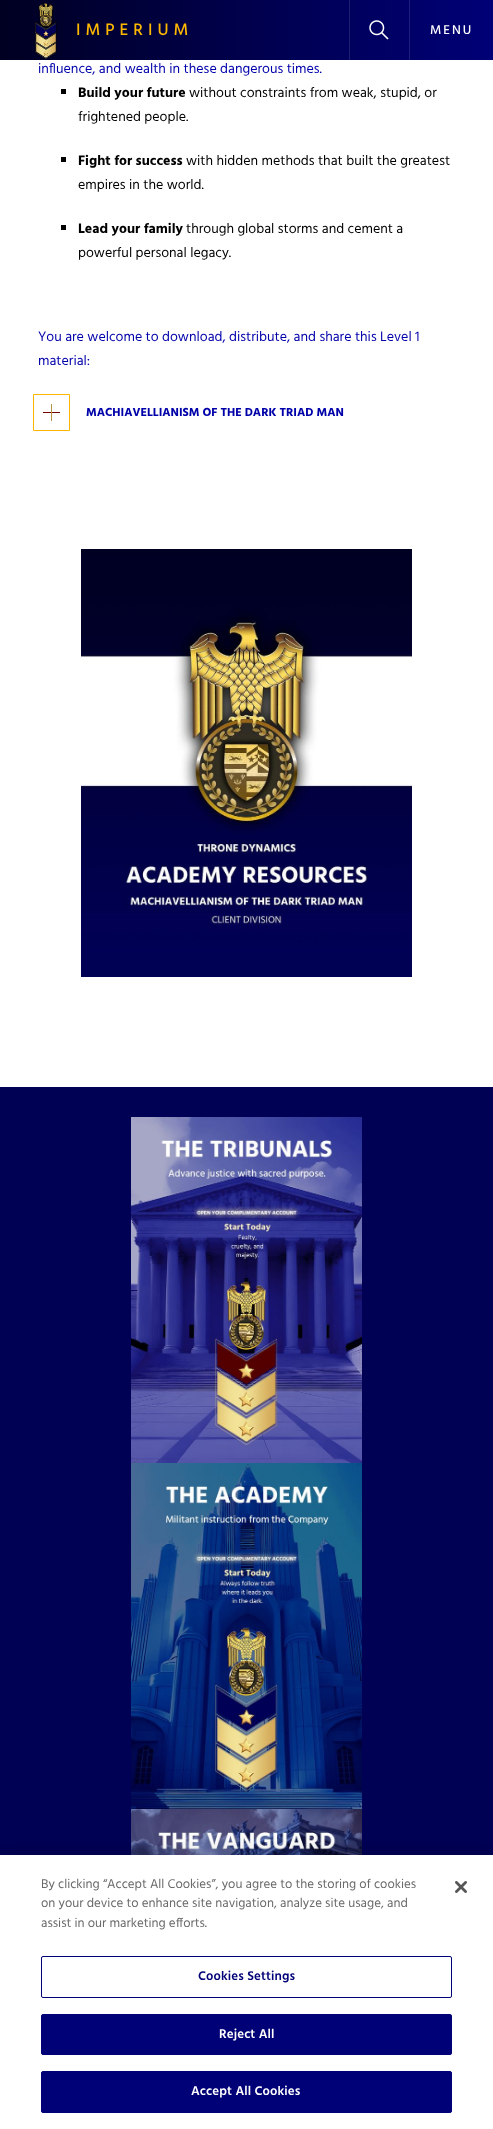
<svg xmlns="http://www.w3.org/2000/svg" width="493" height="2129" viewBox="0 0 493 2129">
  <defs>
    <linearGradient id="g1" gradientUnits="userSpaceOnUse" x1="0" y1="30" x2="493" y2="30"><stop offset="0" stop-color="#002"/><stop offset="1" stop-color="#007"/></linearGradient>
  </defs>
  <rect width="100%" height="100%" fill="#005"/>
  <path d="M0 0h493v60H0z" fill="url(#g1)"/>
  <image x="34" y="2" width="24" height="58" href="img/1.png"/>
  <path d="M349 0h1v60H349z" fill="#1f1f71"/>
  <image x="369" y="20" width="20" height="20" href="img/2.png"/>
  <path d="M409 0h1v60H409z" fill="#1f1f7b"/>
  <path d="M0 60h493v1027H0z" fill="#fff"/>
  <path d="M61 89h5v5H61z" fill="#000"/>
  <path d="M61 157h5v5H61z" fill="#000"/>
  <path d="M61 225h5v5H61z" fill="#000"/>
  <path d="M33.5 394.5h36v36H33.5z" fill="none" stroke="#feb800"/>
  <path d="M43 412h17v1H43z" fill="#700"/>
  <path d="M51 404h1v17H51z" fill="#b49543"/>
  <image x="81" y="549" width="331" height="428" href="img/3.png"/>
  <image x="131" y="1117" width="231" height="346" href="img/4.png"/>
  <image x="131" y="1463" width="231" height="346" href="img/5.png"/>
  <image x="131" y="1809" width="231" height="46" href="img/6.png"/>
  <path d="M0 1855h493v274H0z" fill="#00000033" filter="blur(9px)"/>
  <path d="M0 1855h493v274H0z" fill="#fff"/>
  <rect x="41.5" y="1956.5" width="410" height="41" rx="1.5" fill="none" stroke="#007"/>
  <rect x="41.5" y="2014.5" width="410" height="40" rx="1.5" fill="#007" stroke="#007"/>
  <rect x="41.5" y="2071.5" width="410" height="41" rx="1.5" fill="#007" stroke="#007"/>
  <image x="455" y="1881" width="12" height="12" href="img/7.png"/>
  <text x="76" y="35" font-family="Hind" font-size="17" font-weight="500" letter-spacing="5" fill="#feb800">IMPERIUM</text>
  <text x="430" y="34" font-family="Hind" font-size="13" font-weight="500" letter-spacing="2" fill="#fff">MENU</text>
  <text x="38" y="73" font-family="Hind" font-size="14" fill="#00a">influence, and wealth in these dangerous times.</text>
  <text x="78" y="97" font-family="Hind" font-size="14" font-weight="bold" fill="#000">Build your future</text>
  <g font-family="Hind" font-size="14" fill="#000">
    <text x="189" y="97">without constraints from weak, stupid, or</text>
    <text x="78" y="121">frightened people.</text>
  </g>
  <text x="78" y="165" font-family="Hind" font-size="14" font-weight="bold" fill="#000">Fight for success</text>
  <g font-family="Hind" font-size="14" fill="#000">
    <text x="186" y="165">with hidden methods that built the greatest</text>
    <text x="78" y="189">empires in the world.</text>
  </g>
  <text x="78" y="233" font-family="Hind" font-size="14" font-weight="bold" fill="#000">Lead your family</text>
  <g font-family="Hind" font-size="14" fill="#000">
    <text x="186" y="233">through global storms and cement a</text>
    <text x="78" y="257">powerful personal legacy.</text>
  </g>
  <g font-family="Hind" font-size="14" fill="#00a">
    <text x="38" y="341">You are welcome to download, distribute, and share this Level 1</text>
    <text x="38" y="365">material:</text>
  </g>
  <text x="86" y="416" font-family="Hind" font-size="12" font-weight="bold" fill="#00a">MACHIAVELLIANISM OF THE DARK TRIAD MAN</text>
  <g font-family="Hind" font-size="13" fill="#696969">
    <text x="41" y="1888">By clicking “Accept All Cookies”, you agree to the storing of cookies</text>
    <text x="41" y="1907">on your device to enhance site navigation, analyze site usage, and</text>
    <text x="41" y="1927">assist in our marketing efforts.</text>
  </g>
  <text x="198" y="1980" font-family="Hind" font-size="13" font-weight="600" letter-spacing="0.1" fill="#007">Cookies Settings</text>
  <g font-family="Hind" font-size="13" font-weight="600" letter-spacing="0.1" fill="#fff">
    <text x="219" y="2038">Reject All</text>
    <text x="191" y="2095">Accept All Cookies</text>
  </g>
</svg>
